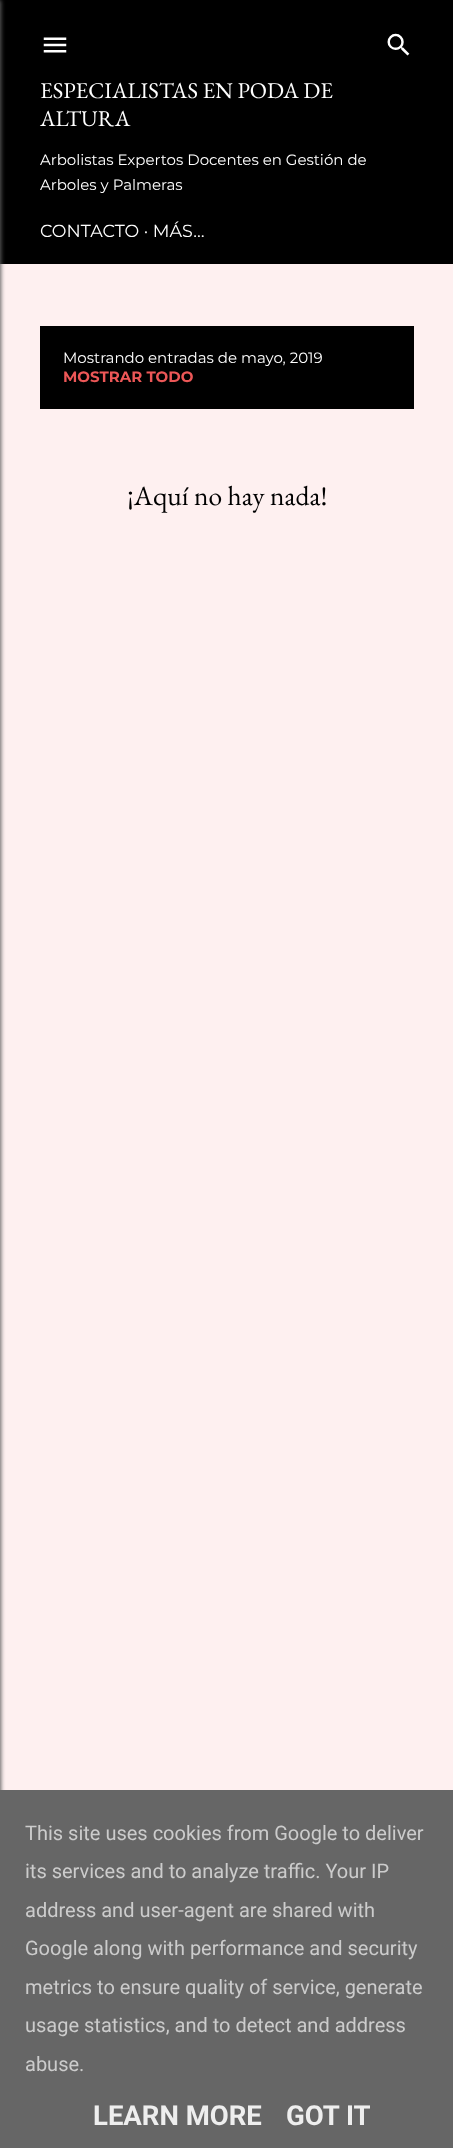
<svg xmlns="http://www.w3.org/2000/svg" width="453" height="2148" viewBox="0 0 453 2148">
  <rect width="100%" height="100%" fill="#fef0f0"/>
  <path d="M0 0h453v264H0z" fill="#000"/>
  <path d="M-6 0h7v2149H-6z" fill="#5f5f5f" filter="blur(2px)"/>
  <image x="43" y="37" width="24" height="16" href="img/1.png"/>
  <image x="387" y="33" width="23" height="23" href="img/2.png"/>
  <path d="M40 326h374v83H40z" fill="#000"/>
  <path d="M0 1790h453v358H0z" fill="#666"/>
  <g font-family="EB Garamond" font-size="22.5" fill="#fff">
    <text x="40" y="98">ESPECIALISTAS EN PODA DE</text>
    <text x="40" y="126">ALTURA</text>
  </g>
  <g font-family="Montserrat" font-size="15" fill="#fff">
    <text x="40" y="165">Arbolistas Expertos Docentes en Gestión de</text>
    <text x="40" y="190">Arboles y Palmeras</text>
  </g>
  <text x="40" y="237" font-family="Montserrat" font-size="17.5" fill="#fff">CONTACTO · MÁS…</text>
  <text x="63" y="363" font-family="Montserrat" font-size="15" fill="#fff">Mostrando entradas de mayo, 2019</text>
  <text x="63" y="382" font-family="Montserrat" font-size="15" font-weight="bold" fill="#ec5757">MOSTRAR TODO</text>
  <text x="127" y="505" font-family="EB Garamond" font-size="27.5" fill="#000">¡Aquí no hay nada!</text>
  <g font-family="Roboto" font-size="20" fill="#ccc">
    <text x="25" y="1840">This site uses cookies from Google to deliver</text>
    <text x="25" y="1878">its services and to analyze traffic. Your IP</text>
    <text x="25" y="1917">address and user-agent are shared with</text>
    <text x="25" y="1955">Google along with performance and security</text>
    <text x="25" y="1994">metrics to ensure quality of service, generate</text>
    <text x="25" y="2032">usage statistics, and to detect and address</text>
    <text x="25" y="2071">abuse.</text>
  </g>
  <g font-family="Roboto" font-size="27.5" font-weight="bold" fill="#eee">
    <text x="93" y="2125">LEARN MORE</text>
    <text x="286" y="2125">GOT IT</text>
  </g>
</svg>
